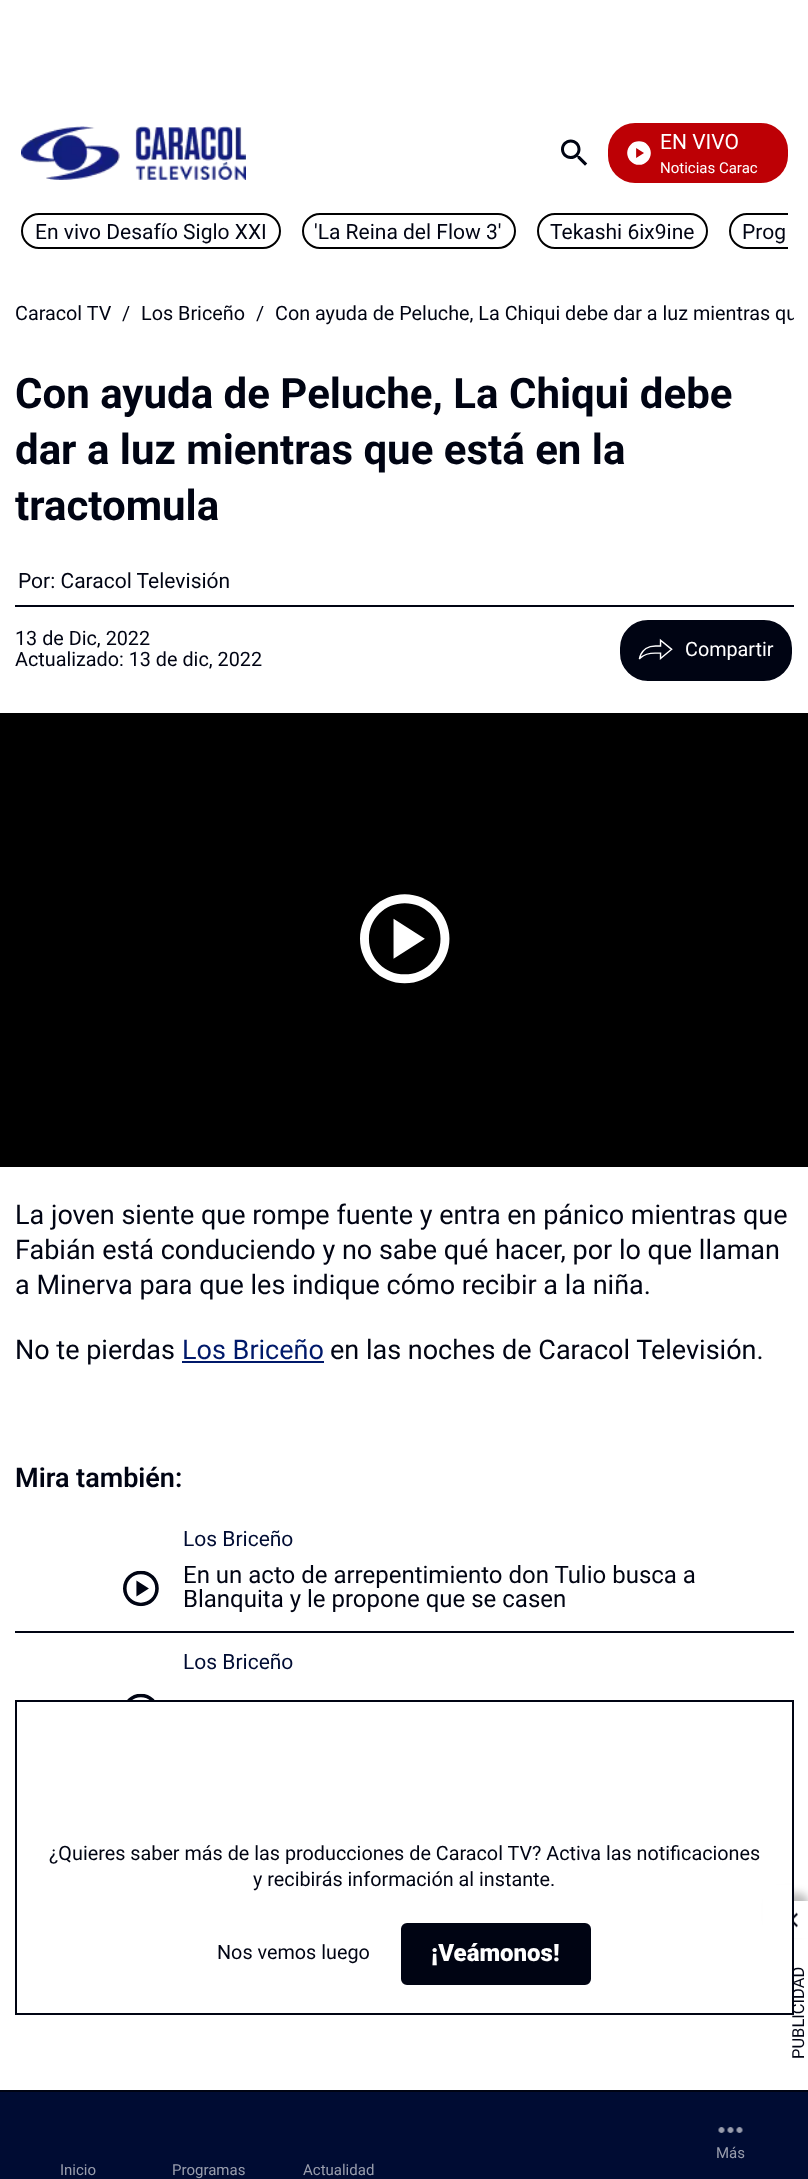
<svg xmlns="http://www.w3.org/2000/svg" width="808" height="2179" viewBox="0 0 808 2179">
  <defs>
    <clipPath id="clip1"><path d="M21 201h767v60H21z"/></clipPath>
    <clipPath id="clip2"><path d="M15 291h779v45H15z"/></clipPath>
  </defs>
  <rect width="100%" height="100%" fill="#fff"/>
  <image x="21" y="126" width="225" height="54" href="img/1.png"/>
  <image x="561" y="139" width="27" height="27" href="img/2.png"/>
  <rect x="608" y="123" width="180" height="60" rx="27" fill="#bd0005"/>
  <image x="627" y="141" width="24" height="24" href="img/3.png"/>
  <path d="M0 2092h808v87H0z" fill="#000c33"/>
  <path d="M0 2090h808v2H0z" fill="#000413"/>
  <image x="718" y="2127" width="25" height="6" href="img/4.png"/>
  <rect x="22" y="214" width="258" height="34" rx="17" fill="none" stroke="#000" stroke-width="2"/>
  <rect x="303" y="214" width="212" height="34" rx="17" fill="none" stroke="#000" stroke-width="2"/>
  <rect x="538" y="214" width="169" height="34" rx="17" fill="none" stroke="#000" stroke-width="2"/>
  <g clip-path="url(#clip1)">
    <rect x="730" y="214" width="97" height="34" rx="17" fill="none" stroke="#000" stroke-width="2"/>
  </g>
  <path d="M15 605h779v2H15z" fill="#000413"/>
  <rect x="619" y="619" width="174" height="63" rx="29" fill="#000413" stroke="#fff" stroke-width="2"/>
  <image x="638" y="638" width="35" height="22" href="img/5.png"/>
  <path d="M0 713h808v454H0z" fill="#000"/>
  <image x="360" y="894" width="90" height="90" href="img/6.png"/>
  <path d="M182 1361h142v2H182z" fill="#00196a"/>
  <path d="M15 1631h779v2H15z" fill="#000413"/>
  <image x="123" y="1570" width="36" height="37" href="img/7.png"/>
  <image x="127" y="1693" width="28" height="7" href="img/8.png"/>
  <rect x="771" y="1893" width="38" height="38" rx="11" fill="#2121214d" filter="blur(4.5px)"/>
  <path d="M794 1901h14v37H794z" fill="#fff"/>
  <image x="794" y="1912" width="4" height="16" href="img/9.png"/>
  <text x="660" y="149" font-family="Roboto" font-size="21" fill="#fff">EN VIVO</text>
  <text x="660" y="173" font-family="Roboto" font-size="15" fill="#fff">Noticias Carac</text>
  <g font-family="Roboto" font-size="15" fill="#999ead">
    <text x="716" y="2158">Más</text>
    <text x="60" y="2175">Inicio</text>
    <text x="172" y="2175">Programas</text>
    <text x="303" y="2175">Actualidad</text>
  </g>
  <g font-family="Roboto" font-size="21" fill="#000413">
    <text x="35" y="239">En vivo Desafío Siglo XXI</text>
    <text x="314" y="239">'La Reina del Flow 3'</text>
    <text x="550" y="239">Tekashi 6ix9ine</text>
    <text x="742" y="239">Prog</text>
  </g>
  <g font-family="Roboto" font-size="19.8" fill="#000413">
    <text x="15" y="320">Caracol TV</text>
    <text x="122" y="320">/</text>
    <text x="141" y="320">Los Briceño</text>
    <text x="256" y="320">/</text>
  </g>
  <g clip-path="url(#clip2)">
    <text x="275" y="320" font-family="Roboto" font-size="19.8" fill="#000413">Con ayuda de Peluche, La Chiqui debe dar a luz mientras qu</text>
  </g>
  <g font-family="Roboto" font-size="42" font-weight="bold" fill="#000413">
    <text x="15" y="408">Con ayuda de Peluche, La Chiqui debe</text>
    <text x="15" y="464">dar a luz mientras que está en la</text>
    <text x="15" y="520">tractomula</text>
  </g>
  <text x="18" y="588" font-family="Roboto" font-size="21" fill="#000413">Por: Caracol Televisión</text>
  <g font-family="Roboto" font-size="19.8" fill="#000413">
    <text x="15" y="645">13 de Dic, 2022</text>
    <text x="15" y="666">Actualizado: 13 de dic, 2022</text>
  </g>
  <text x="685" y="656" font-family="Roboto" font-size="19.8" fill="#fff">Compartir</text>
  <g font-family="Roboto" font-size="27" fill="#000413">
    <text x="15" y="1224">La joven siente que rompe fuente y entra en pánico mientras que</text>
    <text x="15" y="1259">Fabián está conduciendo y no sabe qué hacer, por lo que llaman</text>
    <text x="15" y="1294">a Minerva para que les indique cómo recibir a la niña.</text>
    <text x="15" y="1359">No te pierdas</text>
  </g>
  <text x="182" y="1359" font-family="Roboto" font-size="27" fill="#00196a">Los Briceño</text>
  <text x="330" y="1359" font-family="Roboto" font-size="27" fill="#000413">en las noches de Caracol Televisión.</text>
  <text x="15" y="1487" font-family="Roboto" font-size="27" font-weight="600" fill="#000413">Mira también:</text>
  <text x="183" y="1546" font-family="Roboto" font-size="21" fill="#000c33">Los Briceño</text>
  <g font-family="Roboto" font-size="24" fill="#000413">
    <text x="183" y="1583">En un acto de arrepentimiento don Tulio busca a</text>
    <text x="183" y="1607">Blanquita y le propone que se casen</text>
  </g>
  <text x="183" y="1669" font-family="Roboto" font-size="21" fill="#000c33">Los Briceño</text>
  <text x="804" y="2059" transform="rotate(-90 804 2059)" font-family="Roboto" font-size="16.5" fill="#000413">PUBLICIDAD</text>
  <path d="M763 1885h29v124H763z" fill="#fff"/>
  <path d="M16 1701h777v313H16z" fill="none" stroke="#000413" stroke-width="2"/>
  <rect x="402" y="1924" width="188" height="60" rx="5" fill="#000413" stroke="#000413" stroke-width="2"/>
  <text x="431" y="1961" font-family="Roboto" font-size="24" font-weight="900" fill="#fff">¡Veámonos!</text>
  <g font-family="Roboto" font-size="19.8" fill="#000413">
    <text x="217" y="1959">Nos vemos luego</text>
    <text x="253" y="1886">y recibirás información al instante.</text>
    <text x="49" y="1860">¿Quieres saber más de las producciones de Caracol TV? Activa las notificaciones</text>
  </g>
</svg>
